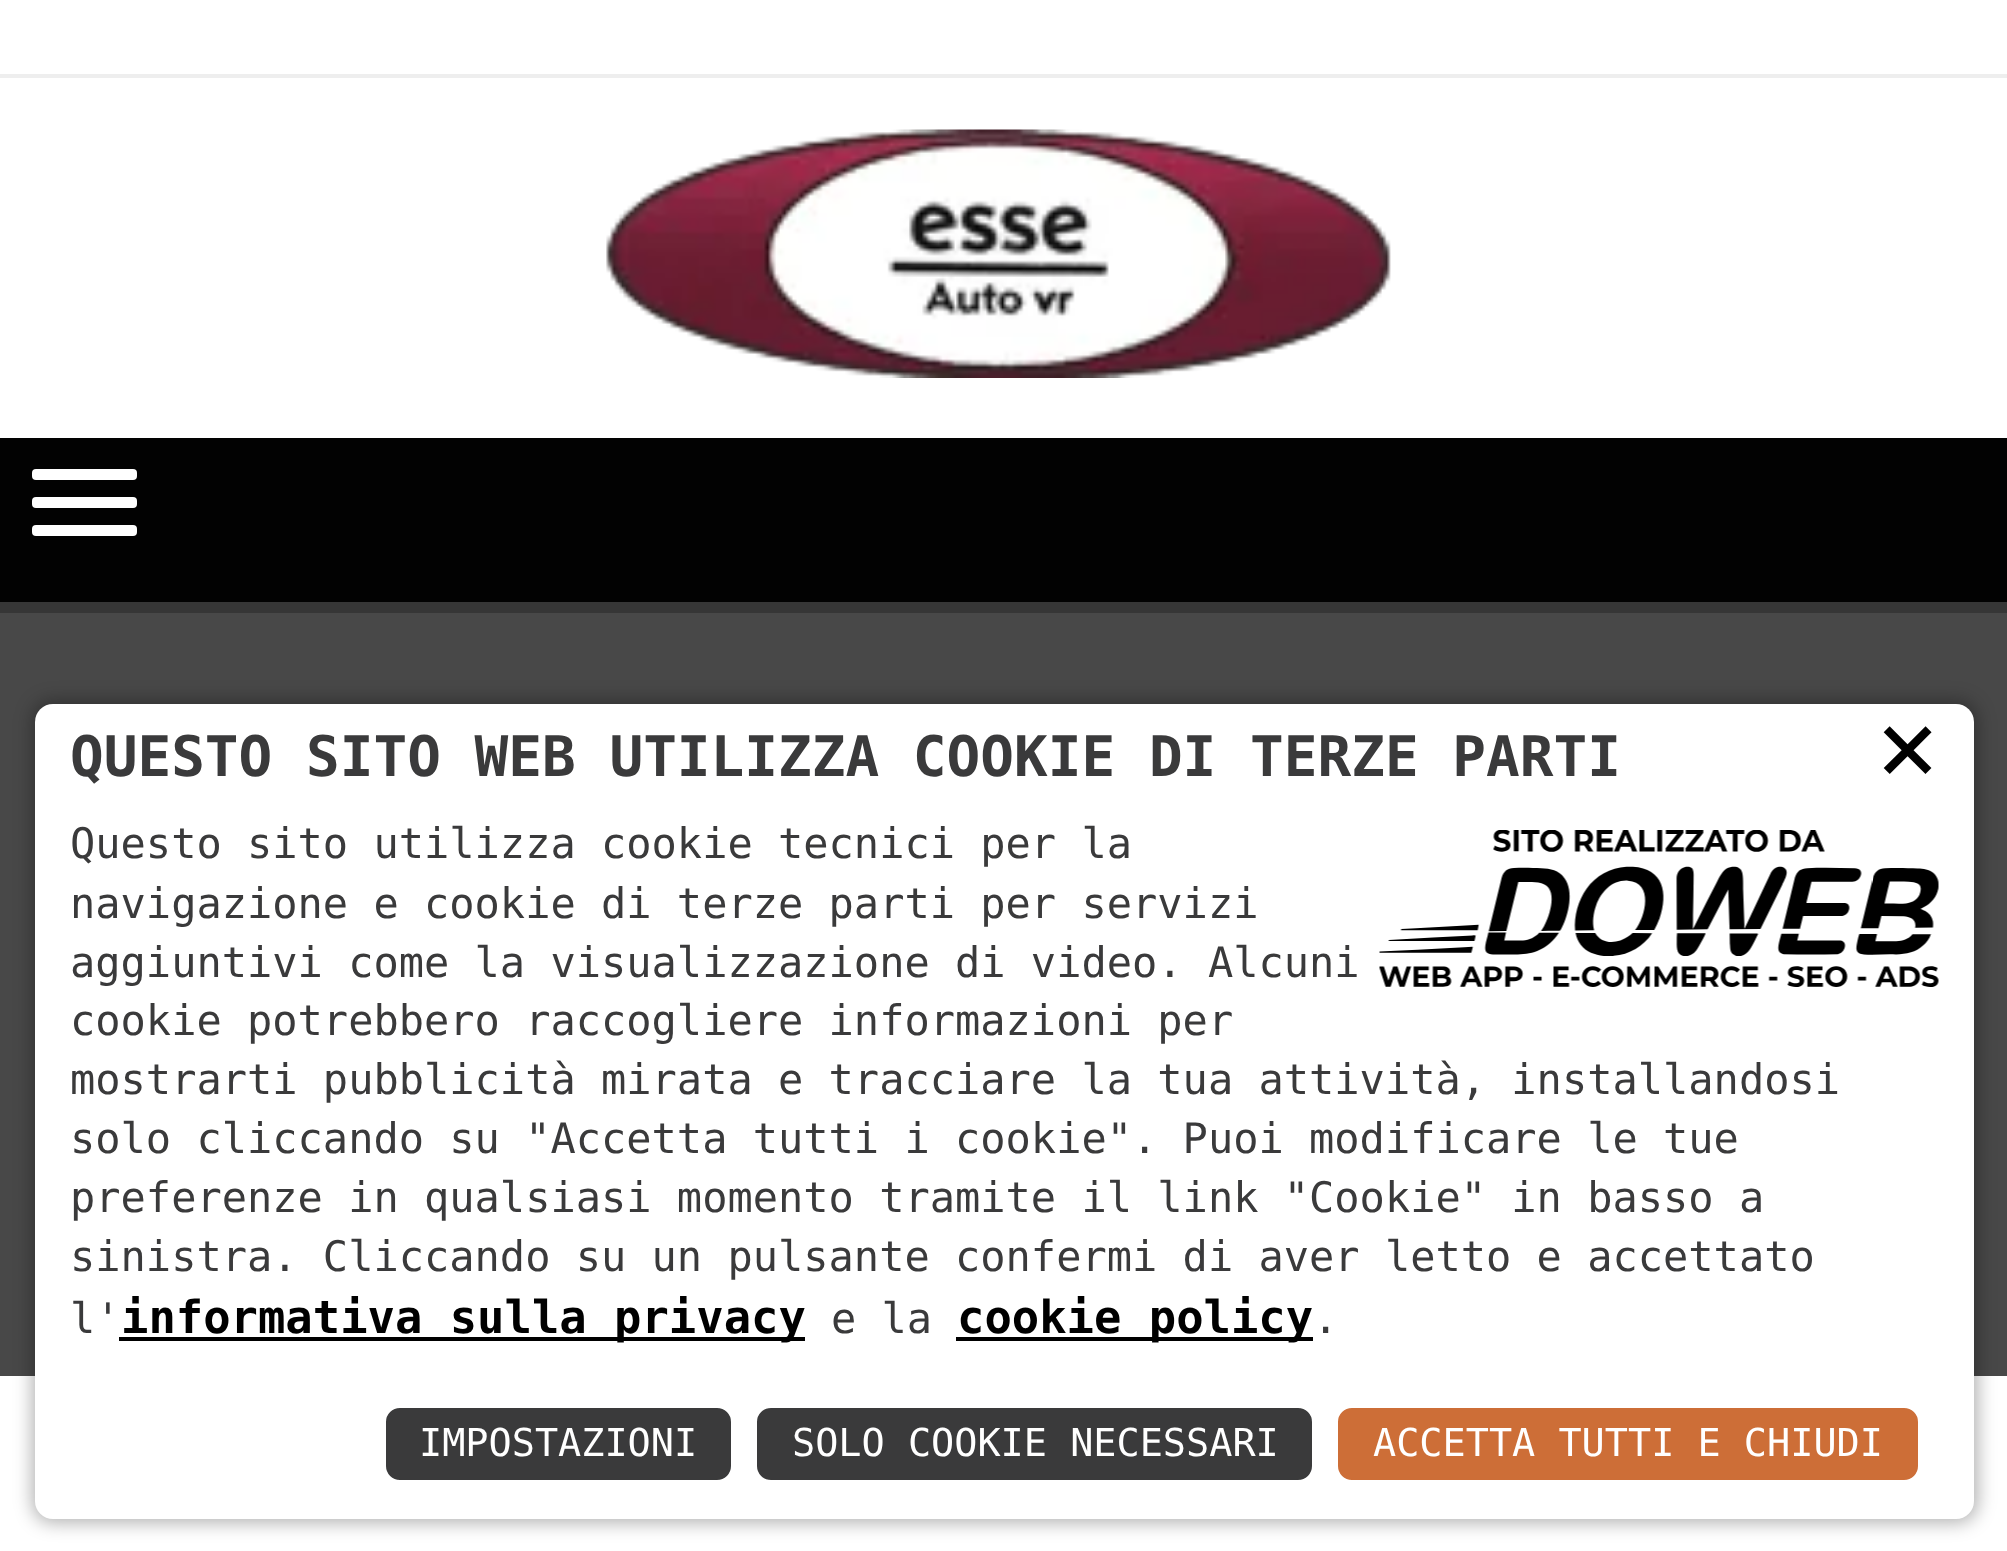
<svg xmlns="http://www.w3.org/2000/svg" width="2007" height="1551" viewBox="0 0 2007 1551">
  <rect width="100%" height="100%" fill="#fff"/>
  <path d="M0 74h2007v4H0z" fill="#eee"/>
  <image x="606" y="129" width="785" height="249" href="img/1.png"/>
  <path d="M0 438h2007v164H0z" fill="#020202"/>
  <path d="M0 602h2007v11H0z" fill="#363636"/>
  <rect x="32" y="469" width="105" height="11" rx="4" fill="#fff"/>
  <rect x="32" y="497" width="105" height="11" rx="4" fill="#fff"/>
  <rect x="32" y="525" width="105" height="11" rx="4" fill="#fff"/>
  <path d="M0 613h2007v763H0z" fill="#484848"/>
  <rect x="32" y="700" width="1946" height="823" rx="21" fill="#0000004d" filter="blur(9px)"/>
  <rect x="35" y="704" width="1939" height="815" rx="18" fill="#fff"/>
  <image x="1379" y="830" width="560" height="157" href="img/2.png"/>
  <path d="M119 1337h686v4H119z" fill="#000"/>
  <path d="M956 1337h357v4H956z" fill="#000"/>
  <rect x="384" y="1406" width="349" height="76" rx="16" fill="#3a3a3b" stroke="#fff" stroke-width="4"/>
  <rect x="755" y="1406" width="559" height="76" rx="16" fill="#3a3a3b" stroke="#fff" stroke-width="4"/>
  <rect x="1336" y="1406" width="584" height="76" rx="16" fill="#cd6e37" stroke="#fff" stroke-width="4"/>
  <text x="70" y="776" font-family="DejaVu Sans Mono" font-size="56" font-weight="bold" fill="#3a3a3b">QUESTO SITO WEB UTILIZZA COOKIE DI TERZE PARTI</text>
  <text x="1876" y="783" font-family="DejaVu Sans Mono" font-size="105" fill="#000">×</text>
  <g font-family="DejaVu Sans Mono" font-size="42" fill="#3a3a3b">
    <text x="70" y="858">Questo sito utilizza cookie tecnici per la</text>
    <text x="70" y="918">navigazione e cookie di terze parti per servizi</text>
    <text x="70" y="977">aggiuntivi come la visualizzazione di video. Alcuni</text>
    <text x="70" y="1035">cookie potrebbero raccogliere informazioni per</text>
    <text x="70" y="1094">mostrarti pubblicità mirata e tracciare la tua attività, installandosi</text>
    <text x="70" y="1153">solo cliccando su "Accetta tutti i cookie". Puoi modificare le tue</text>
    <text x="70" y="1212">preferenze in qualsiasi momento tramite il link "Cookie" in basso a</text>
    <text x="70" y="1271">sinistra. Cliccando su un pulsante confermi di aver letto e accettato</text>
    <text x="70" y="1333">l'</text>
  </g>
  <text x="121" y="1333" font-family="DejaVu Sans Mono" font-size="45.5" font-weight="bold" fill="#000">informativa sulla privacy</text>
  <text x="831" y="1333" font-family="DejaVu Sans Mono" font-size="42" fill="#3a3a3b">e la</text>
  <text x="957" y="1333" font-family="DejaVu Sans Mono" font-size="45.5" font-weight="bold" fill="#000">cookie policy</text>
  <text x="1313" y="1333" font-family="DejaVu Sans Mono" font-size="42" fill="#3a3a3b">.</text>
  <g font-family="DejaVu Sans Mono" font-size="38.5" fill="#fff">
    <text x="419" y="1456">IMPOSTAZIONI</text>
    <text x="792" y="1456">SOLO COOKIE NECESSARI</text>
    <text x="1373" y="1456">ACCETTA TUTTI E CHIUDI</text>
  </g>
</svg>
